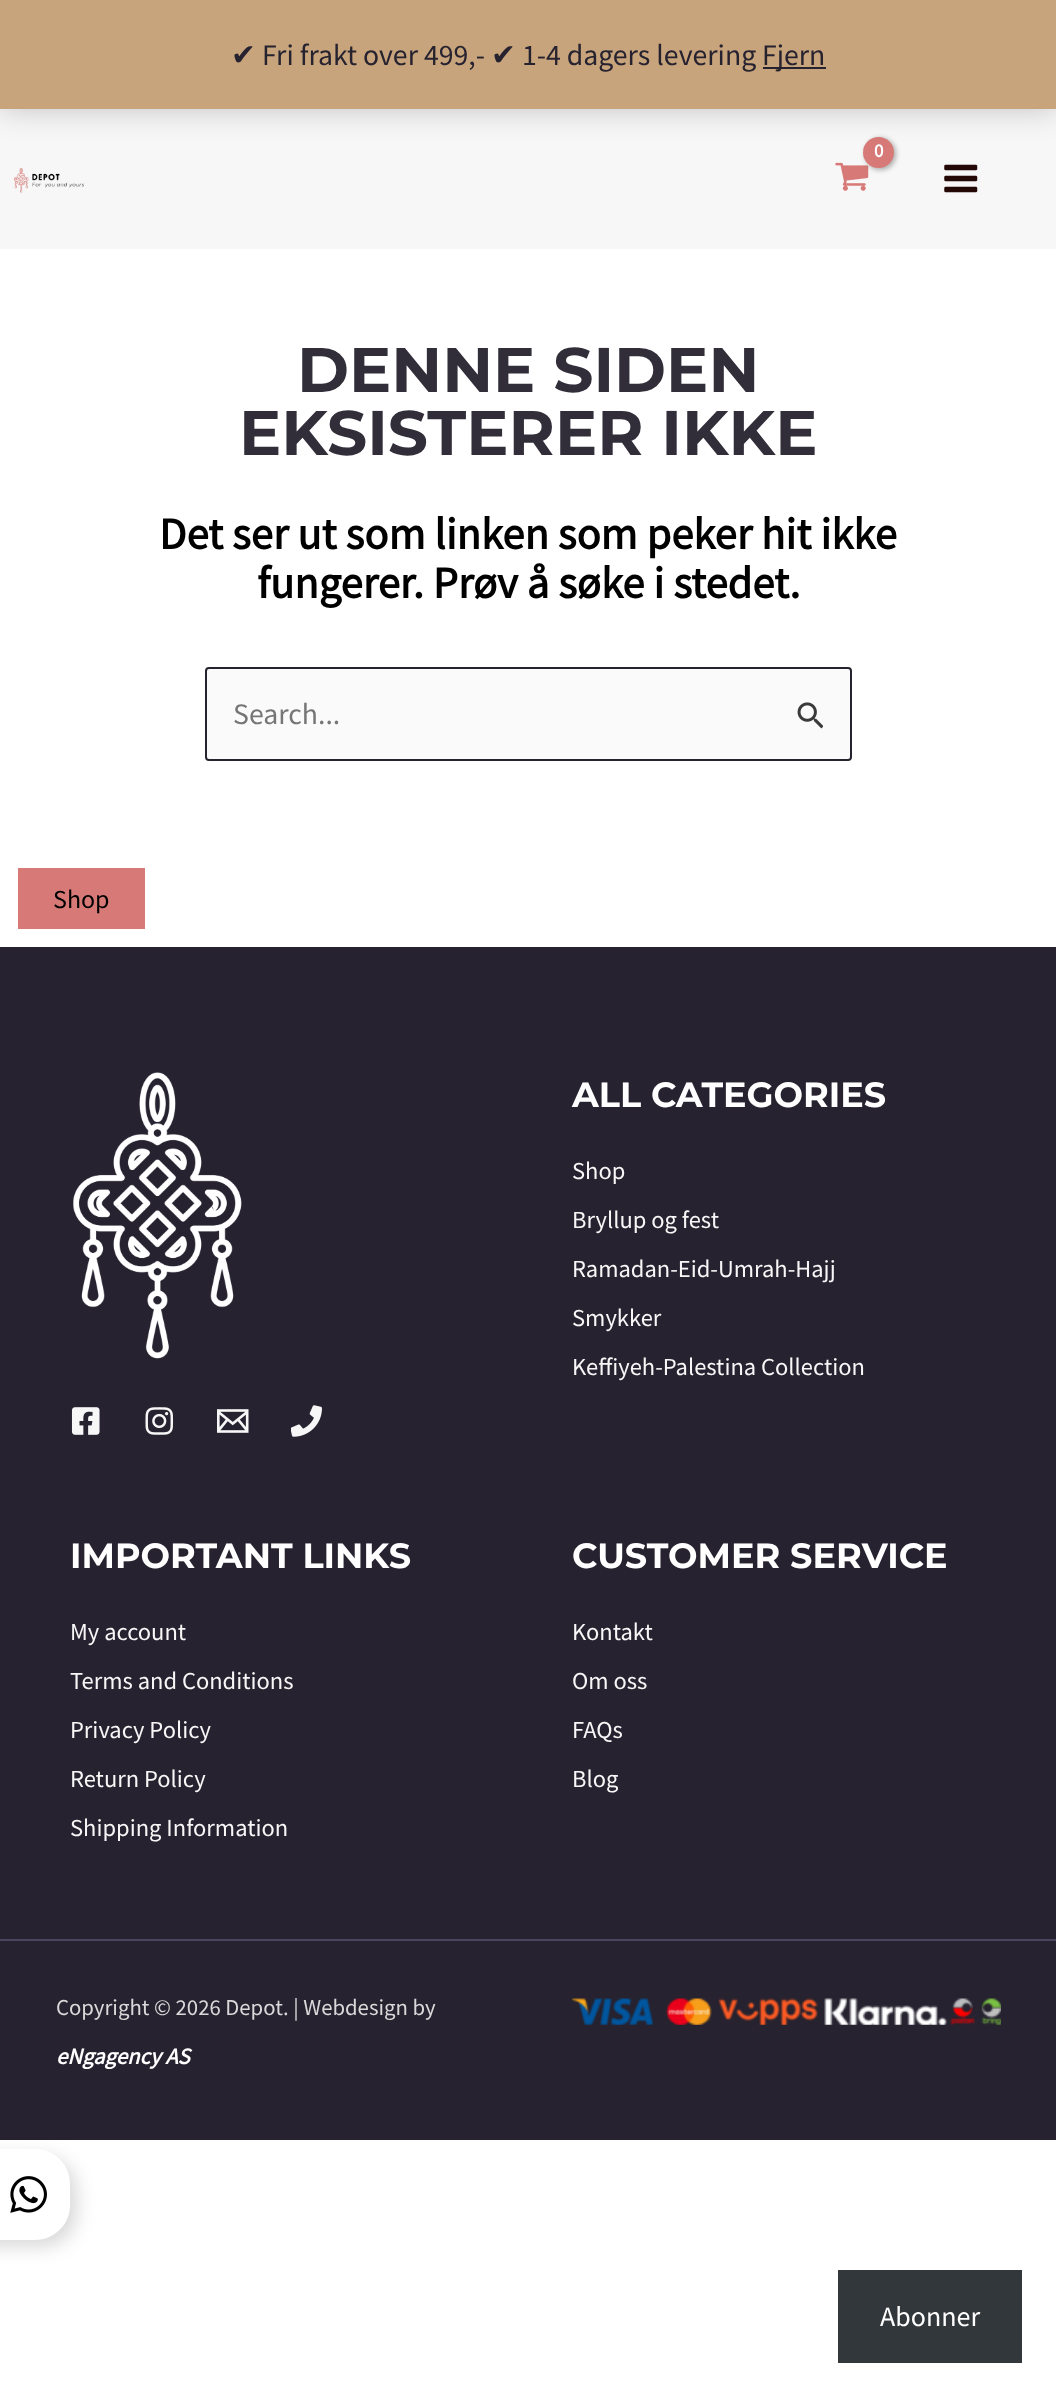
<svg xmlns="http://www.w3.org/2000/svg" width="1056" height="2396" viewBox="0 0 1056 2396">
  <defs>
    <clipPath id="clip1"><path d="M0 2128H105V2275H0ZM-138 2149H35C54.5 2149 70 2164.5 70 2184V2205C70 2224.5 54.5 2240 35 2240H-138Z" clip-rule="evenodd"/></clipPath>
  </defs>
  <rect width="100%" height="100%" fill="#fff"/>
  <path d="M0 109h1056v140H0z" fill="#f7f7f7"/>
  <image x="835" y="162" width="34" height="29" href="img/1.png"/>
  <rect x="865" y="138" width="31" height="32" rx="15.5" fill="#0000004d" filter="blur(2.5px)"/>
  <circle cx="878.5" cy="152.5" r="15.5" fill="#d77a77"/>
  <path d="M0 2h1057v108H0z" fill="#00000033" filter="blur(15px)"/>
  <path d="M0 0h1056v109H0z" fill="#c7a47b"/>
  <path d="M763 67h63v2H763z" fill="#26222f"/>
  <image x="944" y="164" width="34" height="29" href="img/2.png"/>
  <image x="14" y="168" width="70" height="25" href="img/3.png"/>
  <rect x="206" y="668" width="645" height="92" rx="3" fill="#fafafa" stroke="#26222f" stroke-width="2"/>
  <image x="797" y="702" width="26" height="27" href="img/4.png"/>
  <path d="M18 868h127v61H18z" fill="#d77a77"/>
  <path d="M0 947h1056v1193H0z" fill="#26222f"/>
  <image x="73" y="1072" width="169" height="287" href="img/5.png"/>
  <image x="71" y="1407" width="29" height="28" href="img/6.png"/>
  <image x="145" y="1407" width="29" height="28" href="img/7.png"/>
  <image x="217" y="1409" width="32" height="24" href="img/8.png"/>
  <image x="291" y="1405" width="31" height="32" href="img/9.png"/>
  <path d="M0 1939h1056v2H0z" fill="#4c455f"/>
  <image x="572" y="1998" width="429" height="27" href="img/10.png"/>
  <g clip-path="url(#clip1)">
    <rect x="-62" y="2156" width="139" height="91" rx="35" fill="#00000026" filter="blur(9px)"/>
  </g>
  <image x="10" y="2176" width="37" height="37" href="img/11.png"/>
  <path d="M838 2270h184v93H838z" fill="#32373c"/>
  <text x="231" y="65" font-family="DejaVu Sans" font-size="29.75" fill="#26222f">✔</text>
  <text x="262" y="65" font-family="Source Sans Pro" font-size="29.75" fill="#26222f">Fri frakt over 499,-</text>
  <text x="491" y="65" font-family="DejaVu Sans" font-size="29.75" fill="#26222f">✔</text>
  <g font-family="Source Sans Pro" font-size="29.75" fill="#26222f">
    <text x="522" y="65">1-4 dagers levering</text>
    <text x="762" y="65">Fjern</text>
  </g>
  <text x="874" y="157" font-family="Source Sans Pro" font-size="19" font-weight="bold" letter-spacing="-1" fill="#fff">0</text>
  <g font-family="Montserrat" font-size="63" font-weight="100" fill="#312e39">
    <text x="297" y="392">DENNE SIDEN</text>
    <text x="239" y="455">EKSISTERER IKKE</text>
  </g>
  <g font-family="Source Sans Pro" font-size="44.6" font-weight="bold" fill="#000">
    <text x="159" y="549">Det ser ut som linken som peker hit ikke</text>
    <text x="257" y="598">fungerer. Prøv å søke i stedet.</text>
  </g>
  <text x="233" y="724" font-family="Source Sans Pro" font-size="29.75" fill="#757575">Search...</text>
  <text x="53" y="908" font-family="Source Sans Pro" font-size="26" fill="#000">Shop</text>
  <text x="572" y="1107" font-family="Montserrat" font-size="35" font-weight="100" fill="#fff">ALL CATEGORIES</text>
  <g font-family="Source Sans Pro" font-size="24.5" fill="#f7f7f7">
    <text x="572" y="1179">Shop</text>
    <text x="572" y="1228">Bryllup og fest</text>
    <text x="572" y="1277">Ramadan-Eid-Umrah-Hajj</text>
    <text x="572" y="1326">Smykker</text>
    <text x="572" y="1375">Keffiyeh-Palestina Collection</text>
  </g>
  <text x="70" y="1568" font-family="Montserrat" font-size="35" font-weight="100" fill="#fff">IMPORTANT LINKS</text>
  <g font-family="Source Sans Pro" font-size="24.5" fill="#f7f7f7">
    <text x="70" y="1640">My account</text>
    <text x="70" y="1689">Terms and Conditions</text>
    <text x="70" y="1738">Privacy Policy</text>
    <text x="70" y="1787">Return Policy</text>
    <text x="70" y="1836">Shipping Information</text>
  </g>
  <text x="572" y="1568" font-family="Montserrat" font-size="35" font-weight="100" fill="#fff">CUSTOMER SERVICE</text>
  <g font-family="Source Sans Pro" font-size="24.5" fill="#f7f7f7">
    <text x="572" y="1640">Kontakt</text>
    <text x="572" y="1689">Om oss</text>
    <text x="572" y="1738">FAQs</text>
    <text x="572" y="1787">Blog</text>
  </g>
  <text x="56" y="2015" font-family="Source Sans Pro" font-size="22.75" fill="#d9d9d9">Copyright © 2026 Depot. | Webdesign by</text>
  <text x="56" y="2064" font-family="Source Sans Pro" font-size="22.75" font-weight="bold" font-style="italic" fill="#fff">eNgagency AS</text>
  <text x="880" y="2326" font-family="Source Sans Pro" font-size="28" fill="#fff">Abonner</text>
</svg>
